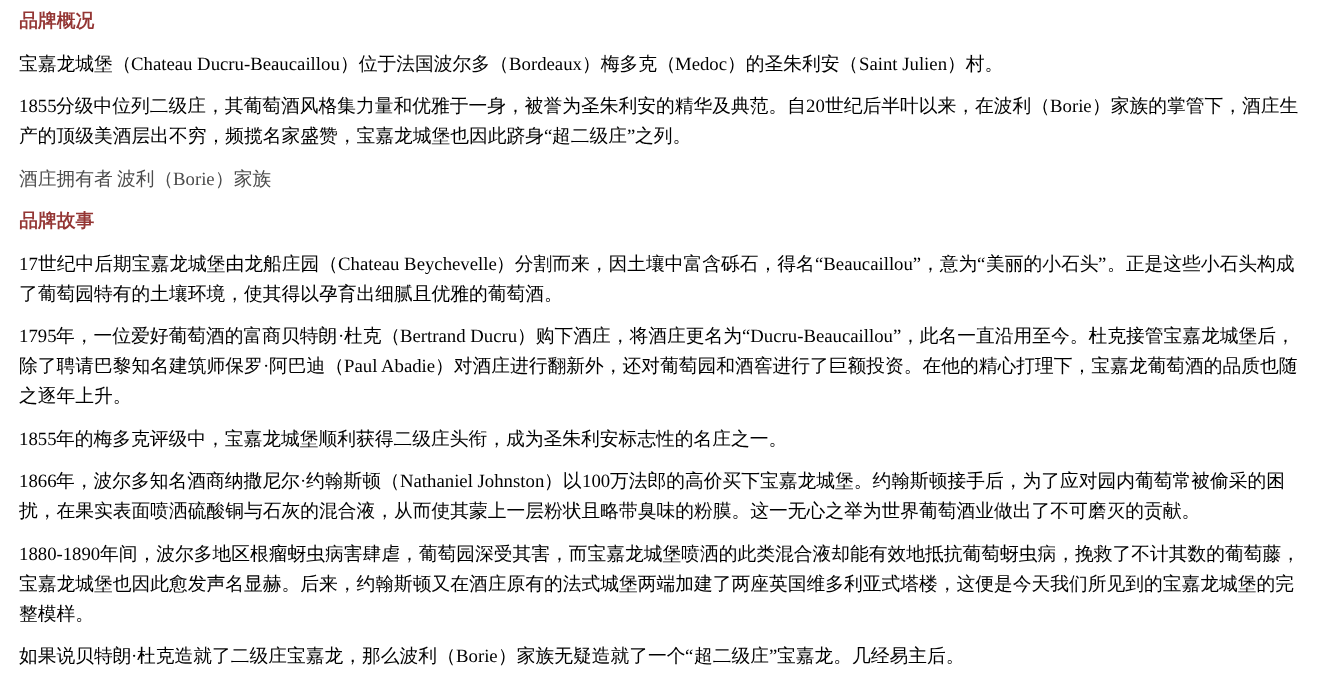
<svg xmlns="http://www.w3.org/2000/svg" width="1319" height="695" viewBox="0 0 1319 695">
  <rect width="100%" height="100%" fill="#fff"/>
  <text x="19" y="27" font-family="WenQuanYi Zen Hei" font-size="18.75" font-weight="bold" fill="#943634">品牌概况</text>
  <text x="19" y="70" font-family="WenQuanYi Zen Hei" font-size="18.75" font-weight="500" fill="#000">宝嘉龙城堡（</text>
  <text x="131" y="70" font-family="Liberation Serif" font-size="18.75" fill="#000">Chateau Ducru-Beaucaillou</text>
  <text x="340" y="70" font-family="WenQuanYi Zen Hei" font-size="18.75" font-weight="500" fill="#000">）位于法国波尔多（</text>
  <text x="509" y="70" font-family="Liberation Serif" font-size="18.75" fill="#000">Bordeaux</text>
  <text x="582" y="70" font-family="WenQuanYi Zen Hei" font-size="18.75" font-weight="500" fill="#000">）梅多克（</text>
  <text x="675" y="70" font-family="Liberation Serif" font-size="18.75" fill="#000">Medoc</text>
  <text x="727" y="70" font-family="WenQuanYi Zen Hei" font-size="18.75" font-weight="500" fill="#000">）的圣朱利安（</text>
  <text x="859" y="70" font-family="Liberation Serif" font-size="18.75" fill="#000">Saint Julien</text>
  <text x="947" y="70" font-family="WenQuanYi Zen Hei" font-size="18.75" font-weight="500" fill="#000">）村。</text>
  <text x="19" y="112" font-family="Liberation Serif" font-size="18.75" fill="#000">1855</text>
  <text x="56" y="112" font-family="WenQuanYi Zen Hei" font-size="18.75" font-weight="500" fill="#000">分级中位列二级庄，其葡萄酒风格集力量和优雅于一身，被誉为圣朱利安的精华及典范。自</text>
  <text x="806" y="112" font-family="Liberation Serif" font-size="18.75" fill="#000">20</text>
  <text x="825" y="112" font-family="WenQuanYi Zen Hei" font-size="18.75" font-weight="500" fill="#000">世纪后半叶以来，在波利（</text>
  <text x="1050" y="112" font-family="Liberation Serif" font-size="18.75" fill="#000">Borie</text>
  <g font-family="WenQuanYi Zen Hei" font-size="18.75" font-weight="500" fill="#000">
    <text x="1092" y="112">）家族的掌管下，酒庄生</text>
    <text x="19" y="142">产的顶级美酒层出不穷，频揽名家盛赞，宝嘉龙城堡也因此跻身</text>
  </g>
  <text x="544" y="142" font-family="Liberation Serif" font-size="18.75" fill="#000">“</text>
  <text x="552" y="142" font-family="WenQuanYi Zen Hei" font-size="18.75" font-weight="500" fill="#000">超二级庄</text>
  <text x="627" y="142" font-family="Liberation Serif" font-size="18.75" fill="#000">”</text>
  <text x="635" y="142" font-family="WenQuanYi Zen Hei" font-size="18.75" font-weight="500" fill="#000">之列。</text>
  <g font-family="WenQuanYi Zen Hei" font-size="18.75" font-weight="500" fill="#4b4b4b">
    <text x="19" y="185">酒庄拥有者</text>
    <text x="117" y="185">波利（</text>
  </g>
  <text x="173" y="185" font-family="Liberation Serif" font-size="18.75" fill="#4b4b4b">Borie</text>
  <text x="215" y="185" font-family="WenQuanYi Zen Hei" font-size="18.75" font-weight="500" fill="#4b4b4b">）家族</text>
  <text x="19" y="227" font-family="WenQuanYi Zen Hei" font-size="18.75" font-weight="bold" fill="#943634">品牌故事</text>
  <text x="19" y="270" font-family="Liberation Serif" font-size="18.75" fill="#000">17</text>
  <text x="38" y="270" font-family="WenQuanYi Zen Hei" font-size="18.75" font-weight="500" fill="#000">世纪中后期宝嘉龙城堡由龙船庄园（</text>
  <text x="338" y="270" font-family="Liberation Serif" font-size="18.75" fill="#000">Chateau Beychevelle</text>
  <text x="496" y="270" font-family="WenQuanYi Zen Hei" font-size="18.75" font-weight="500" fill="#000">）分割而来，因土壤中富含砾石，得名</text>
  <text x="815" y="270" font-family="Liberation Serif" font-size="18.75" fill="#000">“Beaucaillou”</text>
  <text x="921" y="270" font-family="WenQuanYi Zen Hei" font-size="18.75" font-weight="500" fill="#000">，意为</text>
  <text x="977" y="270" font-family="Liberation Serif" font-size="18.75" fill="#000">“</text>
  <text x="986" y="270" font-family="WenQuanYi Zen Hei" font-size="18.75" font-weight="500" fill="#000">美丽的小石头</text>
  <text x="1098" y="270" font-family="Liberation Serif" font-size="18.75" fill="#000">”</text>
  <g font-family="WenQuanYi Zen Hei" font-size="18.75" font-weight="500" fill="#000">
    <text x="1107" y="270">。正是这些小石头构成</text>
    <text x="19" y="300">了葡萄园特有的土壤环境，使其得以孕育出细腻且优雅的葡萄酒。</text>
  </g>
  <text x="19" y="342" font-family="Liberation Serif" font-size="18.75" fill="#000">1795</text>
  <text x="56" y="342" font-family="WenQuanYi Zen Hei" font-size="18.75" font-weight="500" fill="#000">年，一位爱好葡萄酒的富商贝特朗</text>
  <text x="338" y="342" font-family="Liberation Serif" font-size="18.75" fill="#000">·</text>
  <text x="344" y="342" font-family="WenQuanYi Zen Hei" font-size="18.75" font-weight="500" fill="#000">杜克（</text>
  <text x="400" y="342" font-family="Liberation Serif" font-size="18.75" fill="#000">Bertrand Ducru</text>
  <text x="517" y="342" font-family="WenQuanYi Zen Hei" font-size="18.75" font-weight="500" fill="#000">）购下酒庄，将酒庄更名为</text>
  <text x="742" y="342" font-family="Liberation Serif" font-size="18.75" fill="#000">“Ducru-Beaucaillou”</text>
  <g font-family="WenQuanYi Zen Hei" font-size="18.75" font-weight="500" fill="#000">
    <text x="901" y="342">，此名一直沿用至今。杜克接管宝嘉龙城堡后，</text>
    <text x="19" y="372">除了聘请巴黎知名建筑师保罗</text>
  </g>
  <text x="263" y="372" font-family="Liberation Serif" font-size="18.75" fill="#000">·</text>
  <text x="269" y="372" font-family="WenQuanYi Zen Hei" font-size="18.75" font-weight="500" fill="#000">阿巴迪（</text>
  <text x="344" y="372" font-family="Liberation Serif" font-size="18.75" fill="#000">Paul Abadie</text>
  <g font-family="WenQuanYi Zen Hei" font-size="18.75" font-weight="500" fill="#000">
    <text x="435" y="372">）对酒庄进行翻新外，还对葡萄园和酒窖进行了巨额投资。在他的精心打理下，宝嘉龙葡萄酒的品质也随</text>
    <text x="19" y="402">之逐年上升。</text>
  </g>
  <text x="19" y="445" font-family="Liberation Serif" font-size="18.75" fill="#000">1855</text>
  <text x="56" y="445" font-family="WenQuanYi Zen Hei" font-size="18.75" font-weight="500" fill="#000">年的梅多克评级中，宝嘉龙城堡顺利获得二级庄头衔，成为圣朱利安标志性的名庄之一。</text>
  <text x="19" y="487" font-family="Liberation Serif" font-size="18.75" fill="#000">1866</text>
  <text x="56" y="487" font-family="WenQuanYi Zen Hei" font-size="18.75" font-weight="500" fill="#000">年，波尔多知名酒商纳撒尼尔</text>
  <text x="300" y="487" font-family="Liberation Serif" font-size="18.75" fill="#000">·</text>
  <text x="306" y="487" font-family="WenQuanYi Zen Hei" font-size="18.75" font-weight="500" fill="#000">约翰斯顿（</text>
  <text x="400" y="487" font-family="Liberation Serif" font-size="18.75" fill="#000">Nathaniel Johnston</text>
  <text x="544" y="487" font-family="WenQuanYi Zen Hei" font-size="18.75" font-weight="500" fill="#000">）以</text>
  <text x="582" y="487" font-family="Liberation Serif" font-size="18.75" fill="#000">100</text>
  <g font-family="WenQuanYi Zen Hei" font-size="18.75" font-weight="500" fill="#000">
    <text x="610" y="487">万法郎的高价买下宝嘉龙城堡。约翰斯顿接手后，为了应对园内葡萄常被偷采的困</text>
    <text x="19" y="517">扰，在果实表面喷洒硫酸铜与石灰的混合液，从而使其蒙上一层粉状且略带臭味的粉膜。这一无心之举为世界葡萄酒业做出了不可磨灭的贡献。</text>
  </g>
  <text x="19" y="560" font-family="Liberation Serif" font-size="18.75" fill="#000">1880-1890</text>
  <g font-family="WenQuanYi Zen Hei" font-size="18.75" font-weight="500" fill="#000">
    <text x="100" y="560">年间，波尔多地区根瘤蚜虫病害肆虐，葡萄园深受其害，而宝嘉龙城堡喷洒的此类混合液却能有效地抵抗葡萄蚜虫病，挽救了不计其数的葡萄藤，</text>
    <text x="19" y="590">宝嘉龙城堡也因此愈发声名显赫。后来，约翰斯顿又在酒庄原有的法式城堡两端加建了两座英国维多利亚式塔楼，这便是今天我们所见到的宝嘉龙城堡的完</text>
    <text x="19" y="620">整模样。</text>
    <text x="19" y="662">如果说贝特朗</text>
    <text x="137" y="662">杜克造就了二级庄宝嘉龙，那么波利（</text>
  </g>
  <text x="456" y="662" font-family="Liberation Serif" font-size="18.75" fill="#000">Borie</text>
  <text x="498" y="662" font-family="WenQuanYi Zen Hei" font-size="18.75" font-weight="500" fill="#000">）家族无疑造就了一个</text>
  <text x="685" y="662" font-family="Liberation Serif" font-size="18.75" fill="#000">“</text>
  <text x="694" y="662" font-family="WenQuanYi Zen Hei" font-size="18.75" font-weight="500" fill="#000">超二级庄</text>
  <text x="769" y="662" font-family="Liberation Serif" font-size="18.75" fill="#000">”</text>
  <text x="777" y="662" font-family="WenQuanYi Zen Hei" font-size="18.75" font-weight="500" fill="#000">宝嘉龙。几经易主后。</text>
  <text x="131" y="662" font-family="Liberation Serif" font-size="18.75" fill="#000">·</text>
</svg>
